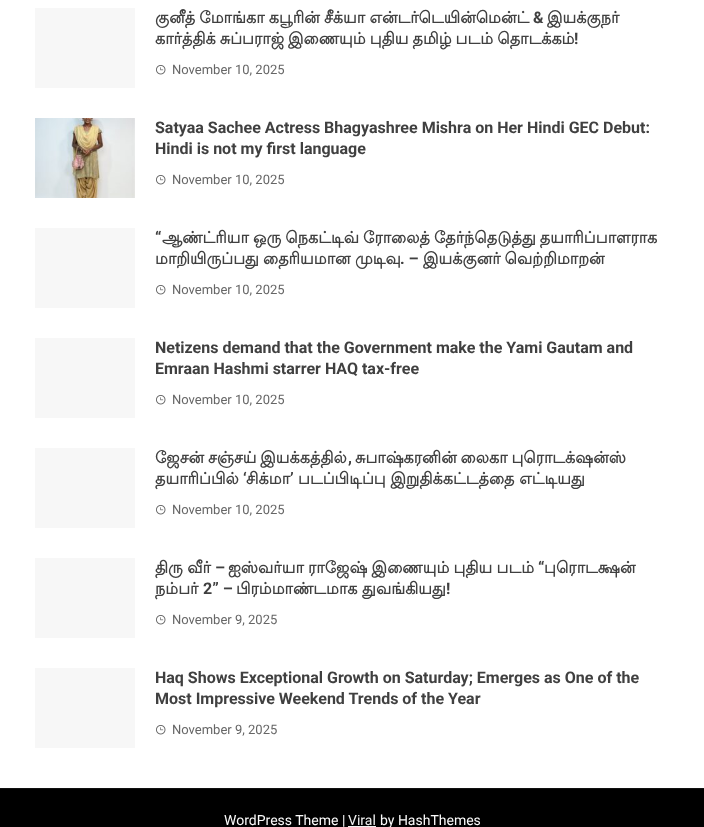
<svg xmlns="http://www.w3.org/2000/svg" width="704" height="827" viewBox="0 0 704 827">
  <rect width="100%" height="100%" fill="#fff"/>
  <path d="M35 8h100v80H35z" fill="#f7f7f7"/>
  <image x="156" y="65" width="10" height="10" href="img/1.png"/>
  <image x="35" y="118" width="100" height="80" href="img/2.png"/>
  <image x="156" y="175" width="10" height="10" href="img/1.png"/>
  <path d="M35 228h100v80H35z" fill="#f7f7f7"/>
  <image x="156" y="285" width="10" height="10" href="img/1.png"/>
  <path d="M35 338h100v80H35z" fill="#f7f7f7"/>
  <image x="156" y="395" width="10" height="10" href="img/1.png"/>
  <path d="M35 448h100v80H35z" fill="#f7f7f7"/>
  <image x="156" y="505" width="10" height="10" href="img/1.png"/>
  <path d="M35 558h100v80H35z" fill="#f7f7f7"/>
  <image x="156" y="615" width="10" height="10" href="img/1.png"/>
  <path d="M35 668h100v80H35z" fill="#f7f7f7"/>
  <image x="156" y="725" width="10" height="10" href="img/1.png"/>
  <path d="M0 789h704v38H0z" fill="#000"/>
  <path d="M0 788h704v1H0z" fill="#111"/>
  <path d="M348 826h28v1H348z" fill="#f0f0f0"/>
  <text x="155" y="23" word-spacing="-0.5" font-family="Lohit Tamil" font-size="16" font-weight="bold" fill="#404040">குனீத் மோங்கா கபூரின் சீக்யா என்டர்டெயின்மென்ட்</text>
  <text x="533" y="23" font-family="Roboto" font-size="16" font-weight="bold" fill="#404040">&amp;</text>
  <g font-family="Lohit Tamil" font-size="16" font-weight="bold" fill="#404040">
    <text x="547" y="23">இயக்குநர்</text>
    <text x="155" y="44" word-spacing="-0.75">கார்த்திக் சுப்பராஜ் இணையும் புதிய தமிழ் படம் தொடக்கம்</text>
  </g>
  <text x="574" y="44" font-family="Roboto" font-size="16" font-weight="bold" fill="#404040">!</text>
  <text x="172" y="74" font-family="Roboto" font-size="13" fill="#666">November 10, 2025</text>
  <g font-family="Roboto" font-size="16" font-weight="bold" fill="#404040">
    <text x="155" y="133">Satyaa Sachee Actress Bhagyashree Mishra on Her Hindi GEC Debut:</text>
    <text x="155" y="154">Hindi is not my first language</text>
  </g>
  <text x="172" y="184" font-family="Roboto" font-size="13" fill="#666">November 10, 2025</text>
  <text x="155" y="243" font-family="Roboto" font-size="16" font-weight="bold" fill="#404040">“</text>
  <g font-family="Lohit Tamil" font-size="16" font-weight="bold" fill="#404040">
    <text x="162" y="243" word-spacing="-0.75">ஆண்ட்ரியா ஒரு நெகட்டிவ் ரோலைத் தேர்ந்தெடுத்து தயாரிப்பாளராக</text>
    <text x="155" y="264">மாறியிருப்பது</text>
    <text x="263" y="264">தைரியமான</text>
    <text x="355" y="264">முடிவு</text>
  </g>
  <text x="400" y="264" font-family="Roboto" font-size="16" font-weight="bold" fill="#404040">. –</text>
  <text x="423" y="264" word-spacing="-0.75" font-family="Lohit Tamil" font-size="16" font-weight="bold" fill="#404040">இயக்குனர் வெற்றிமாறன்</text>
  <text x="172" y="294" font-family="Roboto" font-size="13" fill="#666">November 10, 2025</text>
  <g font-family="Roboto" font-size="16" font-weight="bold" fill="#404040">
    <text x="155" y="353">Netizens demand that the Government make the Yami Gautam and</text>
    <text x="155" y="374">Emraan Hashmi starrer HAQ tax-free</text>
  </g>
  <text x="172" y="404" font-family="Roboto" font-size="13" fill="#666">November 10, 2025</text>
  <text x="155" y="463" word-spacing="-1" font-family="Lohit Tamil" font-size="16" font-weight="bold" fill="#404040">ஜேசன் சஞ்சய் இயக்கத்தில்</text>
  <text x="348" y="463" font-family="Roboto" font-size="16" font-weight="bold" fill="#404040">,</text>
  <g font-family="Lohit Tamil" font-size="16" font-weight="bold" fill="#404040">
    <text x="355" y="463" word-spacing="-1">சுபாஷ்கரனின் லைகா புரொடக்‌ஷன்ஸ்</text>
    <text x="155" y="484">தயாரிப்பில்</text>
  </g>
  <text x="243" y="484" font-family="Roboto" font-size="16" font-weight="bold" fill="#404040">‘</text>
  <text x="246" y="484" font-family="Lohit Tamil" font-size="16" font-weight="bold" fill="#404040">சிக்மா</text>
  <text x="290" y="484" font-family="Roboto" font-size="16" font-weight="bold" fill="#404040">’</text>
  <text x="298" y="484" font-family="Lohit Tamil" font-size="16" font-weight="bold" fill="#404040">படப்பிடிப்பு இறுதிக்கட்டத்தை எட்டியது</text>
  <text x="172" y="514" font-family="Roboto" font-size="13" fill="#666">November 10, 2025</text>
  <text x="155" y="573" word-spacing="-0.5" font-family="Lohit Tamil" font-size="16" font-weight="bold" fill="#404040">திரு வீர்</text>
  <text x="215" y="573" font-family="Roboto" font-size="16" font-weight="bold" fill="#404040">–</text>
  <text x="228" y="573" word-spacing="-0.5" font-family="Lohit Tamil" font-size="16" font-weight="bold" fill="#404040">ஐஸ்வர்யா ராஜேஷ் இணையும் புதிய படம்</text>
  <text x="538" y="573" font-family="Roboto" font-size="16" font-weight="bold" fill="#404040">“</text>
  <g font-family="Lohit Tamil" font-size="16" font-weight="bold" fill="#404040">
    <text x="544" y="573">புரொடக்ஷன்</text>
    <text x="155" y="594">நம்பர்</text>
  </g>
  <text x="203" y="594" font-family="Roboto" font-size="16" font-weight="bold" fill="#404040">2” –</text>
  <g font-family="Lohit Tamil" font-size="16" font-weight="bold" fill="#404040">
    <text x="236" y="594">பிரம்மாண்டமாக</text>
    <text x="362" y="594">துவங்கியது</text>
  </g>
  <text x="446" y="594" font-family="Roboto" font-size="16" font-weight="bold" fill="#404040">!</text>
  <text x="172" y="624" font-family="Roboto" font-size="13" fill="#666">November 9, 2025</text>
  <g font-family="Roboto" font-size="16" font-weight="bold" fill="#404040">
    <text x="155" y="683">Haq Shows Exceptional Growth on Saturday; Emerges as One of the</text>
    <text x="155" y="704">Most Impressive Weekend Trends of the Year</text>
  </g>
  <text x="172" y="734" font-family="Roboto" font-size="13" fill="#666">November 9, 2025</text>
  <text x="224" y="825" font-family="Roboto" font-size="14" fill="#fafafa">WordPress Theme |</text>
  <text x="348" y="825" font-family="Roboto" font-size="14" fill="#f0f0f0">Viral</text>
  <text x="380" y="825" font-family="Roboto" font-size="14" fill="#fafafa">by HashThemes</text>
</svg>
